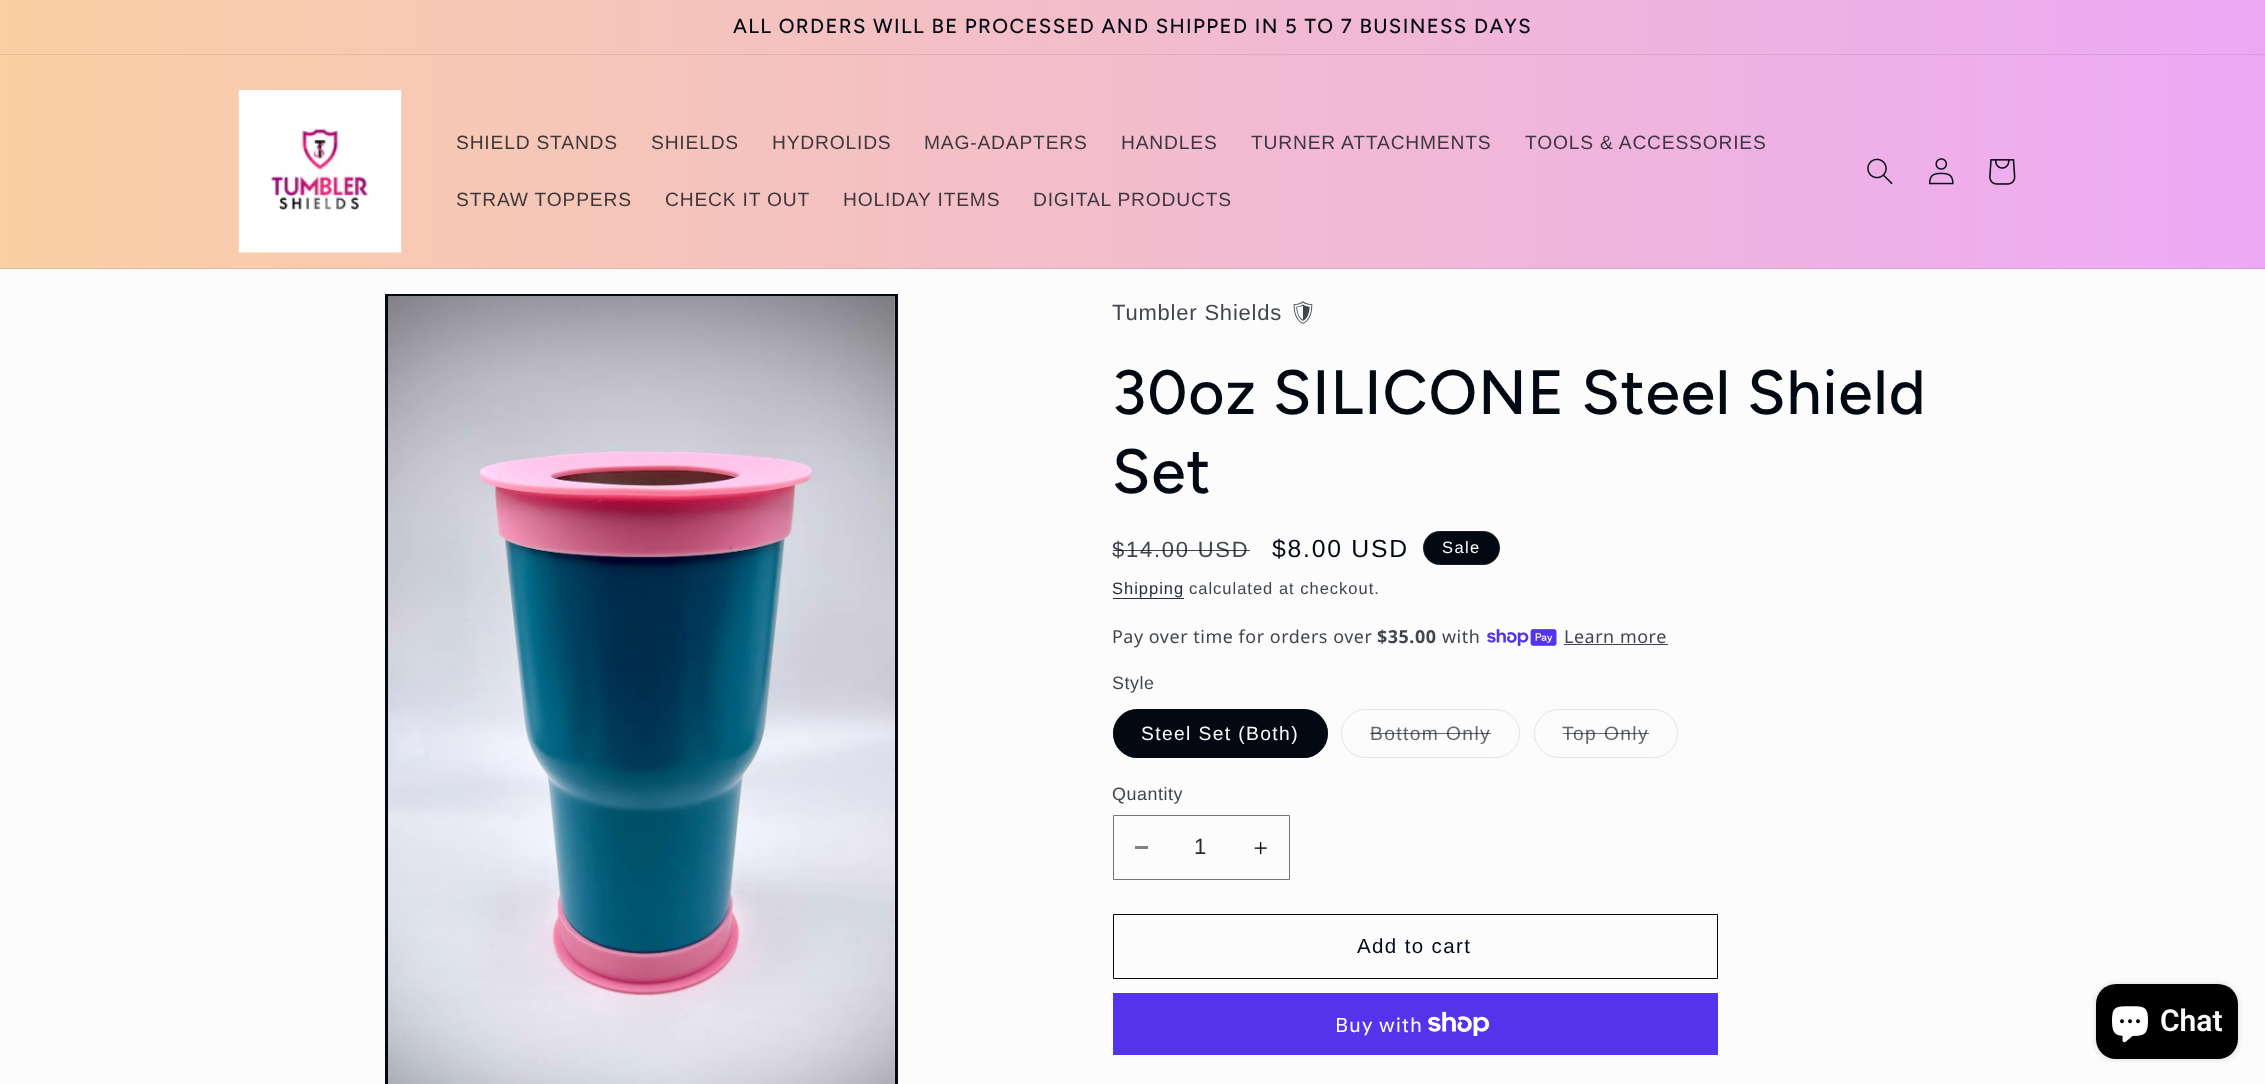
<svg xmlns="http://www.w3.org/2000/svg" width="2265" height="1084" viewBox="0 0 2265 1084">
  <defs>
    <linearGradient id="g1" gradientUnits="userSpaceOnUse" x1="2265" y1="542" x2="0" y2="543"><stop offset="0" stop-color="#eca8f5"/><stop offset="1" stop-color="#f9d0a3"/></linearGradient>
    <linearGradient id="g2" gradientUnits="userSpaceOnUse" x1="2265" y1="542" x2="0" y2="543"><stop offset="0" stop-color="#d99be3"/><stop offset="1" stop-color="#e5c097"/></linearGradient>
    <linearGradient id="g3" gradientUnits="userSpaceOnUse" x1="2265" y1="542" x2="0" y2="543"><stop offset="0" stop-color="#eda9f6"/><stop offset="1" stop-color="#f9d0a3"/></linearGradient>
    <linearGradient id="g4" gradientUnits="userSpaceOnUse" x1="2265" y1="542" x2="0" y2="543"><stop offset="0" stop-color="#da9ce4"/><stop offset="1" stop-color="#e5c097"/></linearGradient>
  </defs>
  <rect width="100%" height="100%" fill="#fcfcfc"/>
  <path d="M0 0h2265v54H0z" fill="url(#g1)"/>
  <path d="M0 54h2265v1H0z" fill="url(#g2)"/>
  <path d="M0 55h2265v213H0z" fill="url(#g3)"/>
  <path d="M0 268h2265v1H0z" fill="url(#g4)"/>
  <image x="238" y="89" width="164" height="164" href="img/1.png"/>
  <image x="1867" y="158" width="26" height="27" href="img/2.png"/>
  <image x="1928" y="158" width="26" height="27" href="img/3.png"/>
  <image x="1989" y="159" width="27" height="26" href="img/4.png"/>
  <path d="M386.5 295.5h510v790H386.5z" fill="none" stroke="#020912" stroke-width="3"/>
  <image x="388" y="296" width="507" height="788" href="img/5.png"/>
  <rect x="1423" y="531" width="77" height="34" rx="17" fill="#020912"/>
  <rect x="1423.5" y="531.5" width="76" height="33" rx="16.5" fill="none" stroke="#fcfcfc1a"/>
  <path d="M1113 598h71v1H1113z" fill="#282d35"/>
  <image x="1487" y="629" width="70" height="17" href="img/6.png"/>
  <path d="M1564 644h104v1H1564z" fill="#41464d"/>
  <rect x="1113" y="709" width="215" height="49" rx="24.5" fill="#020912"/>
  <rect x="1113.5" y="709.5" width="214" height="48" rx="24" fill="none" stroke="#0209128c"/>
  <rect x="1341.5" y="709.5" width="178" height="48" rx="24" fill="none" stroke="#e3e4e5"/>
  <rect x="1534.5" y="709.5" width="143" height="48" rx="24" fill="none" stroke="#e3e4e5"/>
  <path d="M1135 846h13v3H1135z" fill="#7f8387"/>
  <image x="1254" y="842" width="13" height="13" href="img/7.png"/>
  <path d="M1113.5 815.5h176v64H1113.5z" fill="none" stroke="#72767b"/>
  <path d="M1113.5 914.5h604v64H1113.5z" fill="none" stroke="#020912"/>
  <path d="M1113 993h605v62H1113z" fill="#5433eb"/>
  <image x="1428" y="1011" width="62" height="25" href="img/8.png"/>
  <rect x="2096" y="984" width="142" height="75" rx="20" fill="#00000026" filter="blur(3px)"/>
  <rect x="2096" y="984" width="142" height="75" rx="20" fill="#000"/>
  <image x="2112" y="1006" width="36" height="37" href="img/9.png"/>
  <text x="733" y="33" font-family="Figtree" font-size="20.3" font-weight="500" letter-spacing="1.38" fill="#020912">ALL ORDERS WILL BE PROCESSED AND SHIPPED IN 5 TO 7 BUSINESS DAYS</text>
  <g font-family="Arimo" font-size="19.25" letter-spacing="0.8" fill="#3f383b">
    <text x="456" y="149">SHIELD STANDS</text>
    <text x="651" y="149">SHIELDS</text>
    <text x="772" y="149">HYDROLIDS</text>
    <text x="924" y="149">MAG-ADAPTERS</text>
  </g>
  <g font-family="Arimo" font-size="19.25" letter-spacing="0.8" fill="#3e3641">
    <text x="1121" y="149">HANDLES</text>
    <text x="1251" y="149">TURNER ATTACHMENTS</text>
    <text x="1525" y="149">TOOLS &amp; ACCESSORIES</text>
  </g>
  <g font-family="Arimo" font-size="19.25" letter-spacing="0.8" fill="#3f383b">
    <text x="456" y="206">STRAW TOPPERS</text>
    <text x="665" y="206">CHECK IT OUT</text>
    <text x="843" y="206">HOLIDAY ITEMS</text>
  </g>
  <text x="1033" y="206" font-family="Arimo" font-size="19.25" letter-spacing="0.8" fill="#3e3641">DIGITAL PRODUCTS</text>
  <text x="1112" y="320" font-family="Arimo" font-size="22" letter-spacing="0.8" fill="#41464d">Tumbler Shields</text>
  <text x="1289" y="320" font-family="Noto Emoji" font-size="22" letter-spacing="0.8" fill="#41464d">🛡</text>
  <g font-family="Figtree" font-size="62.5" font-weight="500" letter-spacing="0.95" fill="#020912">
    <text x="1112" y="414">30oz SILICONE Steel Shield</text>
    <text x="1112" y="493">Set</text>
  </g>
  <text x="1112" y="557" font-family="Arimo" font-size="22" letter-spacing="1.75" fill="#41464d">$14.00 USD</text>
  <path d="M1113 550h137v1H1113z" fill="#020912bf"/>
  <text x="1272" y="557" font-family="Arimo" font-size="24.75" letter-spacing="1.75" fill="#020912">$8.00 USD</text>
  <text x="1442" y="553" font-family="Arimo" font-size="16.5" letter-spacing="1.38" fill="#fcfcfc">Sale</text>
  <text x="1112" y="594" font-family="Arimo" font-size="16.5" letter-spacing="1" fill="#282d35">Shipping</text>
  <text x="1189" y="594" font-family="Arimo" font-size="16.5" letter-spacing="1" fill="#41464d">calculated at checkout.</text>
  <text x="1112" y="643" font-family="Noto Sans" font-size="17.9" letter-spacing="0.55" fill="#41464d">Pay over time for orders over</text>
  <text x="1377" y="643" font-family="Noto Sans" font-size="17.9" font-weight="bold" letter-spacing="0.55" fill="#41464d">$35.00</text>
  <g font-family="Noto Sans" font-size="17.9" letter-spacing="0.55" fill="#41464d">
    <text x="1442" y="643">with</text>
    <text x="1564" y="643">Learn more</text>
  </g>
  <text x="1112" y="689" font-family="Arimo" font-size="17.9" letter-spacing="0.55" fill="#41464d">Style</text>
  <text x="1141" y="740" font-family="Arimo" font-size="19.25" letter-spacing="1.38" fill="#fcfcfc">Steel Set (Both)</text>
  <text x="1370" y="740" font-family="Arimo" font-size="19.25" letter-spacing="1.38" fill="#666a70">Bottom Only</text>
  <path d="M1370 733h121v1H1370z" fill="#02091299"/>
  <text x="1562" y="740" font-family="Arimo" font-size="19.25" letter-spacing="1.38" fill="#666a70">Top Only</text>
  <path d="M1563 733h86v1H1563z" fill="#02091299"/>
  <text x="1112" y="800" font-family="Arimo" font-size="17.9" letter-spacing="0.55" fill="#41464d">Quantity</text>
  <text x="1194" y="854" font-family="Arimo" font-size="22" fill="#282d35">1</text>
  <text x="1357" y="953" font-family="Arimo" font-size="20.5" letter-spacing="1.38" fill="#020912">Add to cart</text>
  <text x="1335" y="1032" font-family="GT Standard" font-size="20" letter-spacing="0.8" fill="#fcfcfc">Buy with</text>
  <text x="2160" y="1031" font-family="Roboto" font-size="30" font-weight="600" fill="#fcfcfc">Chat</text>
</svg>
